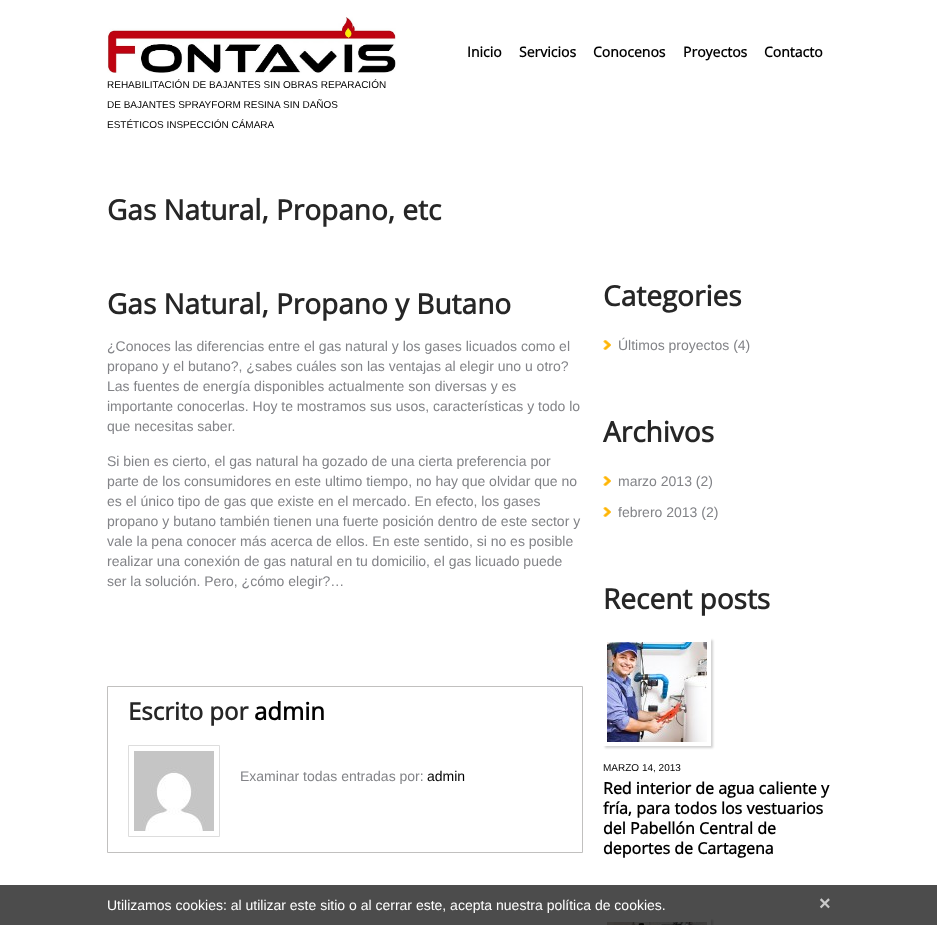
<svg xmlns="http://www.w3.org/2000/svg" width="937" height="925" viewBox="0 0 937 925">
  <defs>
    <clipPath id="clip1"><path d="M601 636H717V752H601ZM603 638H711V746H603Z" clip-rule="evenodd"/></clipPath>
    <clipPath id="clip2"><path d="M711 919h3v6H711z"/></clipPath>
  </defs>
  <rect width="100%" height="100%" fill="#fff"/>
  <image x="107" y="17" width="289" height="56" href="img/1.png"/>
  <path d="M107.5 686.5h475v166H107.5z" fill="none" stroke="#c1c0bf"/>
  <path d="M128.5 745.5h91v91H128.5z" fill="none" stroke="#ddd"/>
  <image x="134" y="751" width="80" height="80" href="img/2.png"/>
  <image x="603" y="340" width="8" height="10" href="img/3.png"/>
  <image x="603" y="476" width="8" height="10" href="img/3.png"/>
  <image x="603" y="507" width="8" height="10" href="img/3.png"/>
  <g clip-path="url(#clip1)">
    <path d="M605 640h108v108H605z" fill="#0000002e" filter="blur(1px)"/>
  </g>
  <image x="607" y="642" width="100" height="100" href="img/4.png"/>
  <g clip-path="url(#clip2)">
    <path d="M605 920h108v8H605z" fill="#0000002e" filter="blur(1px)"/>
  </g>
  <image x="607" y="922" width="100" height="3" href="img/5.png"/>
  <path d="M0 885h937v40H0z" fill="#000000b3"/>
  <g font-family="Open Sans" font-size="14" font-weight="bold" fill="#000">
    <text x="467" y="57">Inicio</text>
    <text x="519" y="57">Servicios</text>
    <text x="593" y="57">Conocenos</text>
    <text x="683" y="57">Proyectos</text>
    <text x="764" y="57">Contacto</text>
  </g>
  <g font-family="Liberation Sans" font-size="10" fill="#000">
    <text x="107" y="88">REHABILITACIÓN DE BAJANTES SIN OBRAS REPARACIÓN</text>
    <text x="107" y="108">DE BAJANTES SPRAYFORM RESINA SIN DAÑOS</text>
    <text x="107" y="128">ESTÉTICOS INSPECCIÓN CÁMARA</text>
  </g>
  <g font-family="Open Sans" font-size="28" font-weight="bold" fill="#262626">
    <text x="107" y="220">Gas Natural, Propano, etc</text>
    <text x="107" y="314">Gas Natural, Propano y Butano</text>
  </g>
  <g font-family="Liberation Sans" font-size="14" fill="#828387">
    <text x="107" y="351">¿Conoces las diferencias entre el gas natural y los gases licuados como el</text>
    <text x="107" y="371">propano y el butano?, ¿sabes cuáles son las ventajas al elegir uno u otro?</text>
    <text x="107" y="391">Las fuentes de energía disponibles actualmente son diversas y es</text>
    <text x="107" y="411">importante conocerlas. Hoy te mostramos sus usos, características y todo lo</text>
    <text x="107" y="431">que necesitas saber.</text>
    <text x="107" y="466">Si bien es cierto, el gas natural ha gozado de una cierta preferencia por</text>
    <text x="107" y="486">parte de los consumidores en este ultimo tiempo, no hay que olvidar que no</text>
    <text x="107" y="506">es el único tipo de gas que existe en el mercado. En efecto, los gases</text>
    <text x="107" y="526">propano y butano también tienen una fuerte posición dentro de este sector y</text>
    <text x="107" y="546">vale la pena conocer más acerca de ellos. En este sentido, si no es posible</text>
    <text x="107" y="566">realizar una conexión de gas natural en tu domicilio, el gas licuado puede</text>
    <text x="107" y="586">ser la solución. Pero, ¿cómo elegir?…</text>
  </g>
  <text x="128" y="720" font-family="Open Sans" font-size="24" font-weight="bold" fill="#262626">Escrito por</text>
  <text x="254" y="720" font-family="Open Sans" font-size="24" font-weight="bold" fill="#000">admin</text>
  <text x="240" y="781" font-family="Liberation Sans" font-size="14" fill="#828387">Examinar todas entradas por:</text>
  <text x="427" y="781" font-family="Liberation Sans" font-size="14" fill="#000">admin</text>
  <text x="603" y="306" font-family="Open Sans" font-size="28" font-weight="bold" fill="#262626">Categories</text>
  <text x="618" y="350" font-family="Liberation Sans" font-size="14" fill="#828387">Últimos proyectos (4)</text>
  <text x="603" y="442" font-family="Open Sans" font-size="28" font-weight="bold" fill="#262626">Archivos</text>
  <g font-family="Liberation Sans" font-size="14" fill="#828387">
    <text x="618" y="486">marzo 2013 (2)</text>
    <text x="618" y="517">febrero 2013 (2)</text>
  </g>
  <text x="603" y="609" font-family="Open Sans" font-size="28" font-weight="bold" fill="#262626">Recent posts</text>
  <text x="603" y="771" font-family="Liberation Sans" font-size="10" fill="#000">MARZO 14, 2013</text>
  <g font-family="Open Sans" font-size="16" font-weight="bold" fill="#000">
    <text x="603" y="794">Red interior de agua caliente y</text>
    <text x="603" y="814">fría, para todos los vestuarios</text>
    <text x="603" y="834">del Pabellón Central de</text>
    <text x="603" y="854">deportes de Cartagena</text>
  </g>
  <text x="107" y="910" font-family="Liberation Sans" font-size="14" fill="#fff">Utilizamos cookies: al utilizar este sitio o al cerrar este, acepta nuestra política de cookies.</text>
  <text x="819" y="910" font-family="Liberation Sans" font-size="20" font-weight="bold" fill="#c9c9c9">×</text>
</svg>
